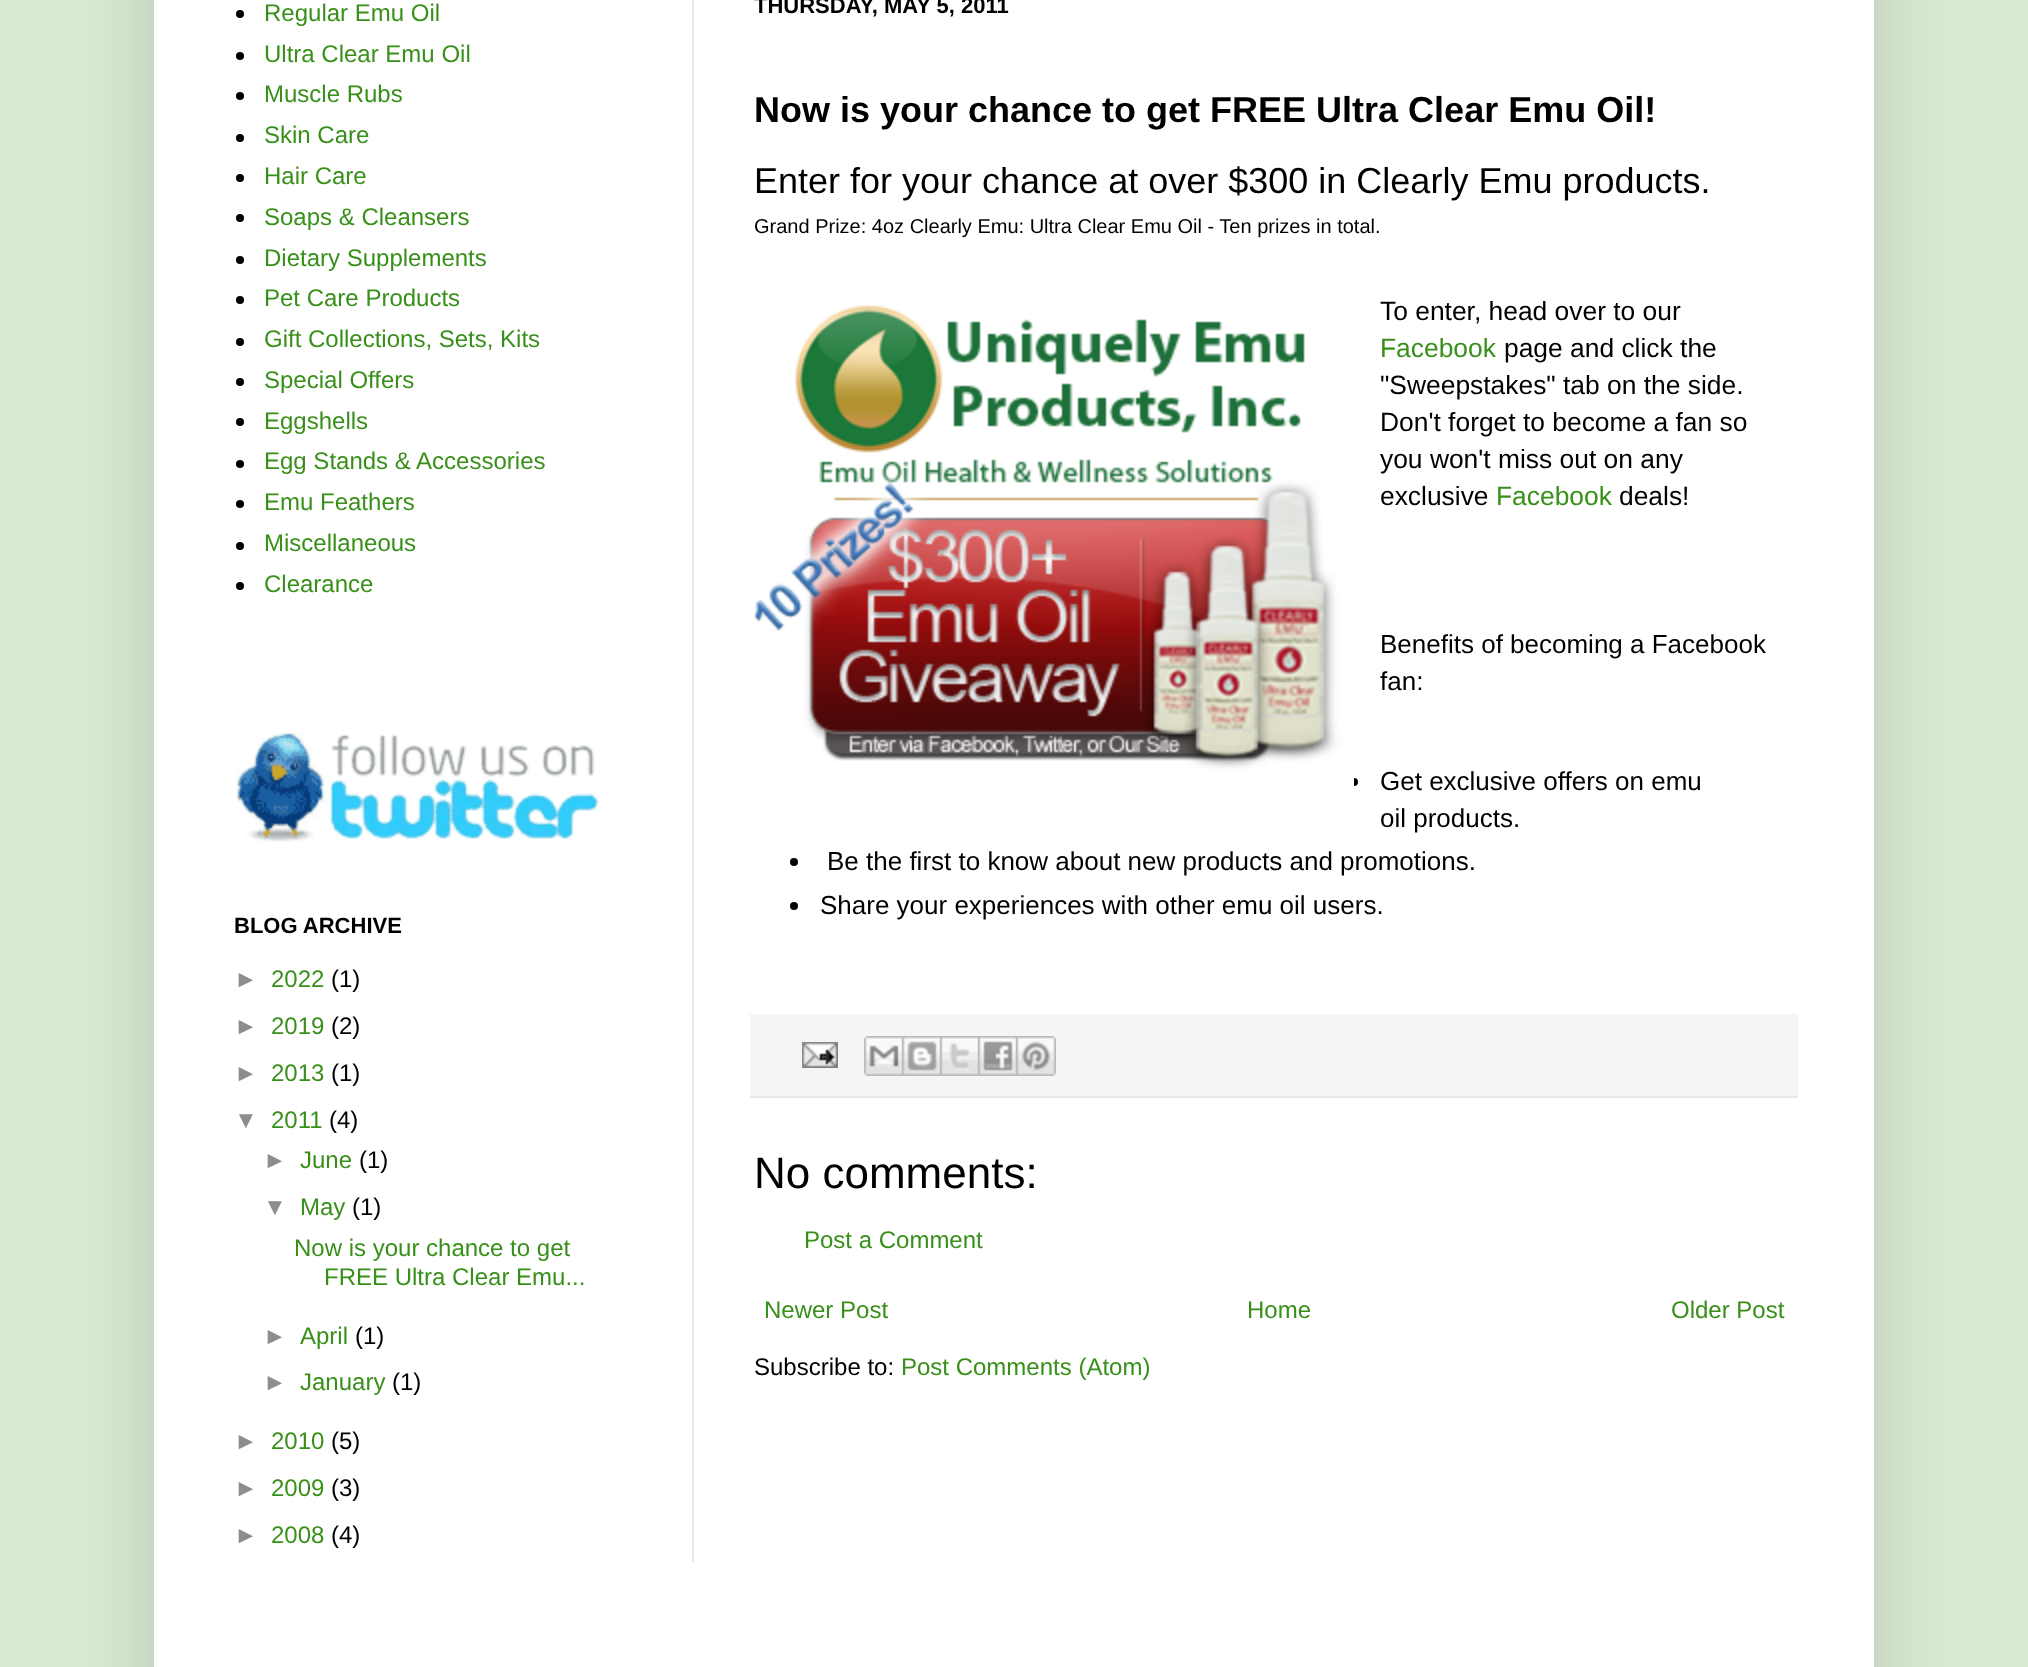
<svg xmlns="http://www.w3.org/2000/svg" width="2028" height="1667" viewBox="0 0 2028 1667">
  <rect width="100%" height="100%" fill="#d9ead3"/>
  <path d="M154 -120h1720v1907H154z" fill="#00000026" filter="blur(40px)"/>
  <path d="M154 0h1720v1667H154z" fill="#fff"/>
  <circle cx="240" cy="14" r="4" fill="#000"/>
  <circle cx="240" cy="56" r="4" fill="#000"/>
  <circle cx="240" cy="96" r="4" fill="#000"/>
  <circle cx="240" cy="138" r="4" fill="#000"/>
  <circle cx="240" cy="178" r="4" fill="#000"/>
  <circle cx="240" cy="218" r="4" fill="#000"/>
  <circle cx="240" cy="260" r="4" fill="#000"/>
  <circle cx="240" cy="300" r="4" fill="#000"/>
  <circle cx="240" cy="342" r="4" fill="#000"/>
  <circle cx="240" cy="382" r="4" fill="#000"/>
  <circle cx="240" cy="422" r="4" fill="#000"/>
  <circle cx="240" cy="464" r="4" fill="#000"/>
  <circle cx="240" cy="504" r="4" fill="#000"/>
  <circle cx="240" cy="546" r="4" fill="#000"/>
  <circle cx="240" cy="586" r="4" fill="#000"/>
  <image x="236" y="733" width="363" height="109" href="img/1.png"/>
  <circle cx="1354" cy="782" r="4" fill="#000"/>
  <image x="754" y="305" width="600" height="481" href="img/2.png"/>
  <circle cx="794" cy="862" r="4" fill="#000"/>
  <circle cx="794" cy="906" r="4" fill="#000"/>
  <path d="M750 1014h1048v82H750z" fill="#f5f5f5"/>
  <path d="M750 1096h1048v2H750z" fill="#e9e9e9"/>
  <image x="802" y="1042" width="36" height="26" href="img/3.png"/>
  <image x="864" y="1036" width="38" height="40" href="img/4.png"/>
  <image x="902" y="1036" width="38" height="40" href="img/5.png"/>
  <image x="940" y="1036" width="38" height="40" href="img/6.png"/>
  <image x="978" y="1036" width="38" height="40" href="img/7.png"/>
  <image x="1016" y="1036" width="40" height="40" href="img/8.png"/>
  <path d="M692 0h2v1562H692z" fill="#e9e9e9"/>
  <g font-family="Liberation Sans" font-size="24" fill="#38901a">
    <text x="264" y="21">Regular Emu Oil</text>
    <text x="264" y="62">Ultra Clear Emu Oil</text>
    <text x="264" y="102">Muscle Rubs</text>
    <text x="264" y="143">Skin Care</text>
    <text x="264" y="184">Hair Care</text>
    <text x="264" y="225">Soaps &amp; Cleansers</text>
    <text x="264" y="266">Dietary Supplements</text>
    <text x="264" y="306">Pet Care Products</text>
    <text x="264" y="347">Gift Collections, Sets, Kits</text>
    <text x="264" y="388">Special Offers</text>
    <text x="264" y="429">Eggshells</text>
    <text x="264" y="469">Egg Stands &amp; Accessories</text>
    <text x="264" y="510">Emu Feathers</text>
    <text x="264" y="551">Miscellaneous</text>
    <text x="264" y="592">Clearance</text>
  </g>
  <text x="234" y="933" font-family="Liberation Sans" font-size="22" font-weight="bold" fill="#000">BLOG ARCHIVE</text>
  <text x="234" y="987" font-family="Liberation Sans" font-size="24" fill="#8d8d8d">►</text>
  <text x="271" y="987" font-family="Liberation Sans" font-size="24" fill="#38901a">2022</text>
  <text x="331" y="987" font-family="Liberation Sans" font-size="24" fill="#000">(1)</text>
  <text x="234" y="1034" font-family="Liberation Sans" font-size="24" fill="#8d8d8d">►</text>
  <text x="271" y="1034" font-family="Liberation Sans" font-size="24" fill="#38901a">2019</text>
  <text x="331" y="1034" font-family="Liberation Sans" font-size="24" fill="#000">(2)</text>
  <text x="234" y="1081" font-family="Liberation Sans" font-size="24" fill="#8d8d8d">►</text>
  <text x="271" y="1081" font-family="Liberation Sans" font-size="24" fill="#38901a">2013</text>
  <text x="331" y="1081" font-family="Liberation Sans" font-size="24" fill="#000">(1)</text>
  <text x="234" y="1128" font-family="Liberation Sans" font-size="24" fill="#8d8d8d">▼</text>
  <text x="271" y="1128" font-family="Liberation Sans" font-size="24" fill="#38901a">2011</text>
  <text x="329" y="1128" font-family="Liberation Sans" font-size="24" fill="#000">(4)</text>
  <text x="263" y="1168" font-family="Liberation Sans" font-size="24" fill="#8d8d8d">►</text>
  <text x="300" y="1168" font-family="Liberation Sans" font-size="24" fill="#38901a">June</text>
  <text x="359" y="1168" font-family="Liberation Sans" font-size="24" fill="#000">(1)</text>
  <text x="263" y="1215" font-family="Liberation Sans" font-size="24" fill="#8d8d8d">▼</text>
  <text x="300" y="1215" font-family="Liberation Sans" font-size="24" fill="#38901a">May</text>
  <text x="352" y="1215" font-family="Liberation Sans" font-size="24" fill="#000">(1)</text>
  <g font-family="Liberation Sans" font-size="24" fill="#38901a">
    <text x="294" y="1256">Now is your chance to get</text>
    <text x="324" y="1285">FREE Ultra Clear Emu...</text>
  </g>
  <text x="263" y="1344" font-family="Liberation Sans" font-size="24" fill="#8d8d8d">►</text>
  <text x="300" y="1344" font-family="Liberation Sans" font-size="24" fill="#38901a">April</text>
  <text x="355" y="1344" font-family="Liberation Sans" font-size="24" fill="#000">(1)</text>
  <text x="263" y="1390" font-family="Liberation Sans" font-size="24" fill="#8d8d8d">►</text>
  <text x="300" y="1390" font-family="Liberation Sans" font-size="24" fill="#38901a">January</text>
  <text x="392" y="1390" font-family="Liberation Sans" font-size="24" fill="#000">(1)</text>
  <text x="234" y="1449" font-family="Liberation Sans" font-size="24" fill="#8d8d8d">►</text>
  <text x="271" y="1449" font-family="Liberation Sans" font-size="24" fill="#38901a">2010</text>
  <text x="331" y="1449" font-family="Liberation Sans" font-size="24" fill="#000">(5)</text>
  <text x="234" y="1496" font-family="Liberation Sans" font-size="24" fill="#8d8d8d">►</text>
  <text x="271" y="1496" font-family="Liberation Sans" font-size="24" fill="#38901a">2009</text>
  <text x="331" y="1496" font-family="Liberation Sans" font-size="24" fill="#000">(3)</text>
  <text x="234" y="1543" font-family="Liberation Sans" font-size="24" fill="#8d8d8d">►</text>
  <text x="271" y="1543" font-family="Liberation Sans" font-size="24" fill="#38901a">2008</text>
  <text x="331" y="1543" font-family="Liberation Sans" font-size="24" fill="#000">(4)</text>
  <text x="754" y="13" font-family="Liberation Sans" font-size="22" font-weight="bold" fill="#000">THURSDAY, MAY 5, 2011</text>
  <text x="754" y="122" font-family="Liberation Sans" font-size="36" font-weight="bold" fill="#000">Now is your chance to get FREE Ultra Clear Emu Oil!</text>
  <text x="754" y="193" font-family="Liberation Sans" font-size="36" fill="#000">Enter for your chance at over $300 in Clearly Emu products.</text>
  <text x="754" y="233" font-family="Liberation Sans" font-size="20" fill="#000">Grand Prize: 4oz Clearly Emu: Ultra Clear Emu Oil - Ten prizes in total.</text>
  <text x="1380" y="320" font-family="Liberation Sans" font-size="26.4" fill="#000">To enter, head over to our</text>
  <text x="1380" y="357" font-family="Liberation Sans" font-size="26.4" fill="#38901a">Facebook</text>
  <g font-family="Liberation Sans" font-size="26.4" fill="#000">
    <text x="1504" y="357">page and click the</text>
    <text x="1380" y="394">"Sweepstakes" tab on the side.</text>
    <text x="1380" y="431">Don't forget to become a fan so</text>
    <text x="1380" y="468">you won't miss out on any</text>
    <text x="1380" y="505">exclusive</text>
  </g>
  <text x="1496" y="505" font-family="Liberation Sans" font-size="26.4" fill="#38901a">Facebook</text>
  <text x="1619" y="505" font-family="Liberation Sans" font-size="26.4" fill="#000">deals!</text>
  <g font-family="Liberation Sans" font-size="26" fill="#000">
    <text x="1380" y="653">Benefits of becoming a Facebook</text>
    <text x="1380" y="690">fan:</text>
    <text x="1380" y="790">Get exclusive offers on emu</text>
    <text x="1380" y="827">oil products.</text>
    <text x="827" y="870">Be the first to know about new products and promotions.</text>
    <text x="820" y="914">Share your experiences with other emu oil users.</text>
  </g>
  <text x="754" y="1188" font-family="Liberation Sans" font-size="44" fill="#000">No comments:</text>
  <g font-family="Liberation Sans" font-size="24" fill="#38901a">
    <text x="804" y="1248">Post a Comment</text>
    <text x="764" y="1318">Newer Post</text>
    <text x="1247" y="1318">Home</text>
    <text x="1671" y="1318">Older Post</text>
  </g>
  <text x="754" y="1375" font-family="Liberation Sans" font-size="24" fill="#000">Subscribe to:</text>
  <text x="901" y="1375" font-family="Liberation Sans" font-size="24" fill="#38901a">Post Comments (Atom)</text>
</svg>
